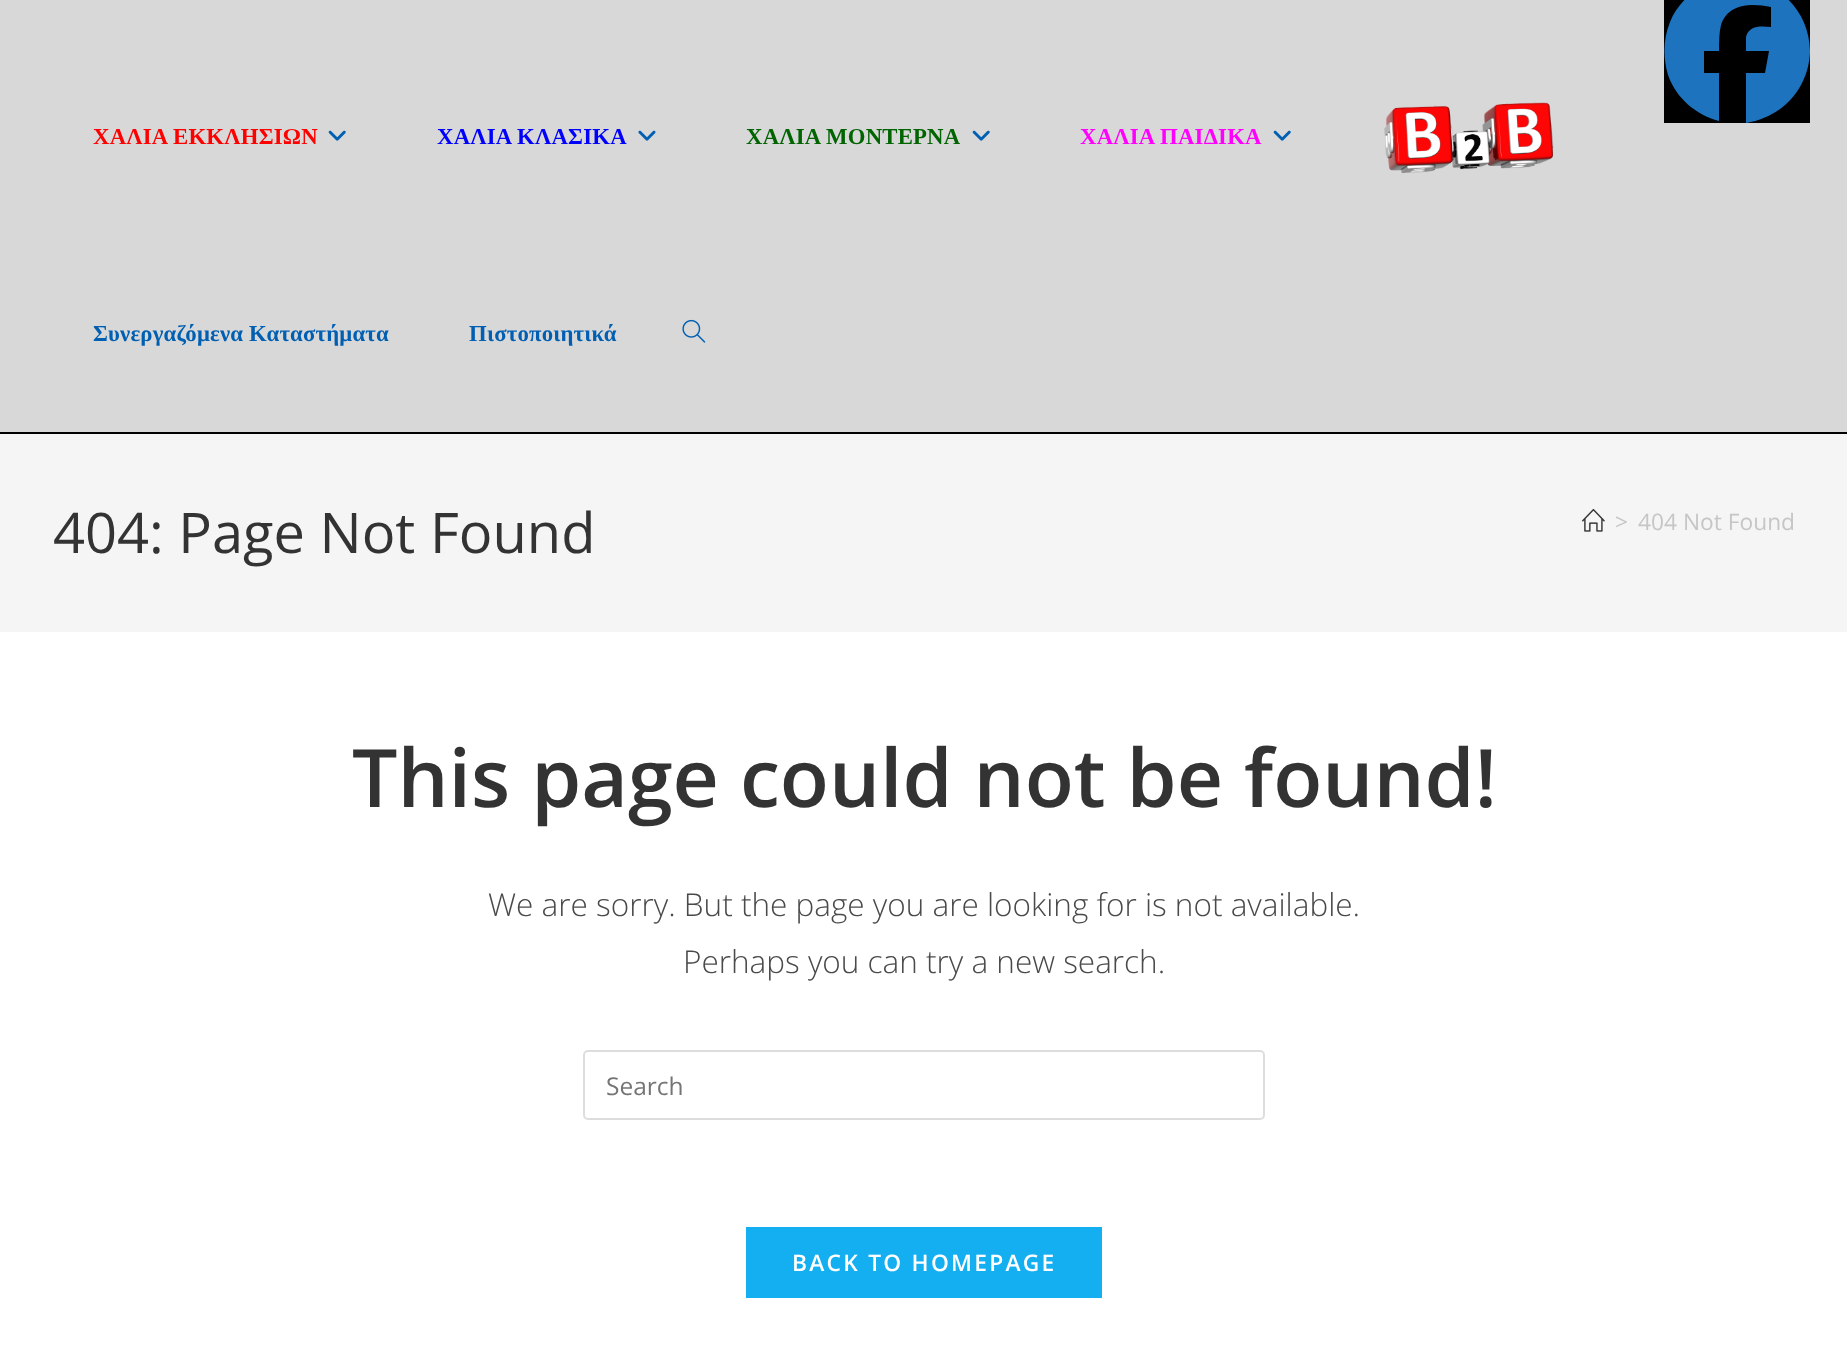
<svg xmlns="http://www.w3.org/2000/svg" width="1847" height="1361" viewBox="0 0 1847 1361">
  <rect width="100%" height="100%" fill="#fff"/>
  <path d="M0 0h1847v432H0z" fill="#d8d8d8"/>
  <path d="M0 432h1847v2H0z" fill="#000"/>
  <path d="M1664 0h146v123H1664z" fill="#000"/>
  <path d="M1810 51C1809-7 1745-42 1696-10C1685-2 1675 9 1670 22C1663 39 1663 58 1668 75C1676 98 1696 115 1719 121V73H1704V51H1719C1719 42 1719 33 1721 25C1728 3 1752 3 1771 7V27C1761 26 1749 25 1746 37V51H1769L1765 73H1746V123C1783 117 1809 88 1810 51Z" fill="#1e73be"/>
  <image x="328" y="130" width="18" height="11" href="img/1.png"/>
  <image x="638" y="130" width="18" height="11" href="img/2.png"/>
  <image x="972" y="130" width="18" height="11" href="img/1.png"/>
  <image x="1273" y="130" width="18" height="11" href="img/1.png"/>
  <image x="1384" y="102" width="170" height="71" href="img/3.png"/>
  <image x="682" y="319" width="24" height="24" href="img/4.png"/>
  <path d="M0 434h1847v198H0z" fill="#f5f5f5"/>
  <image x="1582" y="508" width="23" height="24" href="img/5.png"/>
  <rect x="584" y="1051" width="680" height="68" rx="4" fill="none" stroke="#ddd" stroke-width="2"/>
  <path d="M746 1227h356v71H746z" fill="#13aff0"/>
  <text x="93" y="144" font-family="Liberation Serif" font-size="22.75" font-weight="bold" letter-spacing="0.2" fill="#f00">ΧΑΛΙΑ ΕΚΚΛΗΣΙΩΝ</text>
  <text x="437" y="144" font-family="Liberation Serif" font-size="22.75" font-weight="bold" letter-spacing="0.2" fill="#00f">ΧΑΛΙΑ ΚΛΑΣΙΚΑ</text>
  <text x="746" y="144" font-family="Liberation Serif" font-size="22.75" font-weight="bold" letter-spacing="0.2" fill="#006400">ΧΑΛΙΑ ΜΟΝΤΕΡΝΑ</text>
  <text x="1080" y="144" font-family="Liberation Serif" font-size="22.75" font-weight="bold" letter-spacing="0.2" fill="#f0f">ΧΑΛΙΑ ΠΑΙΔΙΚΑ</text>
  <g font-family="Liberation Serif" font-size="22.75" font-weight="bold" letter-spacing="0.2" fill="#005fb2">
    <text x="93" y="341">Συνεργαζόμενα Καταστήματα</text>
    <text x="469" y="341">Πιστοποιητικά</text>
  </g>
  <text x="53" y="553" font-family="Open Sans" font-size="56" fill="#333">404: Page Not Found</text>
  <g font-family="Open Sans" font-size="22.75" fill="#c6c6c6">
    <text x="1615" y="530">&gt;</text>
    <text x="1638" y="530">404 Not Found</text>
  </g>
  <text x="352" y="807" font-family="Open Sans" font-size="80.5" font-weight="600" fill="#333">This page could not be found!</text>
  <g font-family="Open Sans" font-size="31.5" font-weight="300" fill="#4a4a4a">
    <text x="488" y="916">We are sorry. But the page you are looking for is not available.</text>
    <text x="683" y="973">Perhaps you can try a new search.</text>
  </g>
  <text x="606" y="1095" font-family="Open Sans" font-size="24.5" fill="#757575">Search</text>
  <text x="792" y="1271" font-family="Open Sans" font-size="22.75" font-weight="600" letter-spacing="2.25" fill="#fff">BACK TO HOMEPAGE</text>
</svg>
